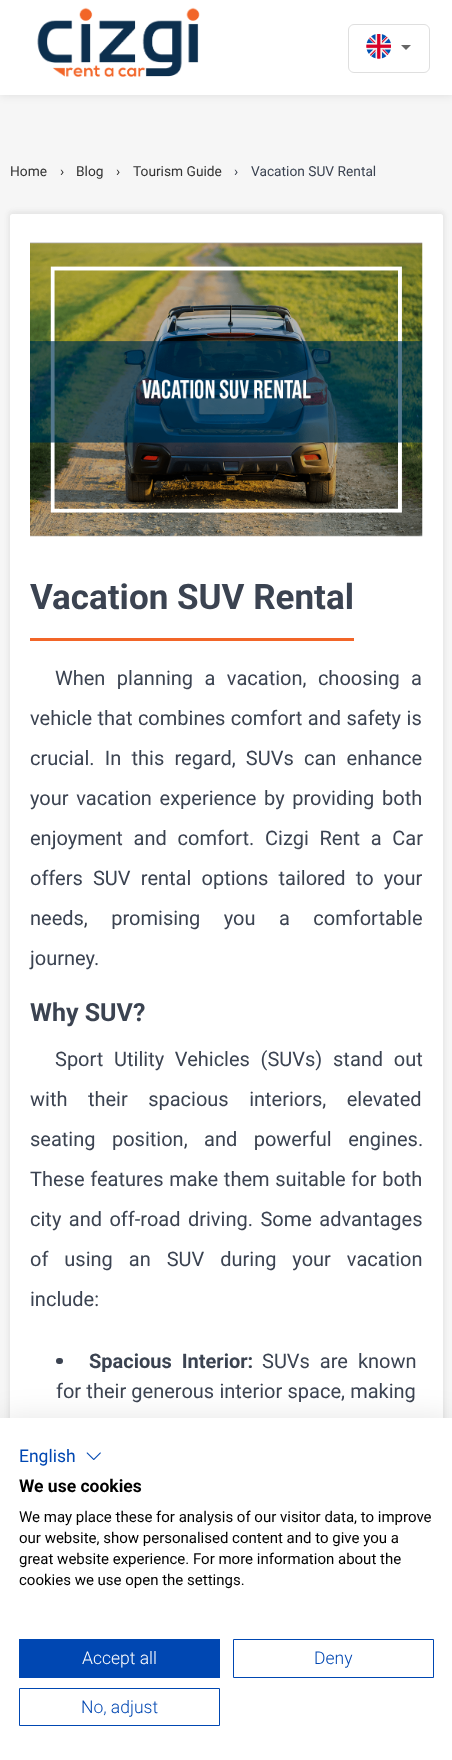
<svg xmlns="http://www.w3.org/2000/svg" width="452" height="1760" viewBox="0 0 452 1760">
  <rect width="100%" height="100%" fill="#f6f6f6"/>
  <path d="M0 0h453v95H0z" fill="#0000001a" filter="blur(5px)"/>
  <path d="M0 0h452v95H0z" fill="#fff"/>
  <image x="37" y="7" width="163" height="70" href="img/1.png"/>
  <rect x="348.5" y="24.5" width="81" height="48" rx="5.5" fill="none" stroke="#dfdfdf"/>
  <image x="366" y="34" width="25" height="25" href="img/2.png"/>
  <path d="M401 45H411L406 50Z" fill="#666"/>
  <rect x="8" y="211" width="437" height="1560" rx="5" fill="#e6e6e6" filter="blur(2px)"/>
  <rect x="10" y="214" width="433" height="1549" rx="2.5" fill="#fff"/>
  <image x="30" y="242" width="393" height="295" href="img/3.png"/>
  <path d="M30 638h324v3H30z" fill="#f26528"/>
  <rect x="56" y="1358" width="7" height="6" rx="3" fill="#3b4351"/>
  <path d="M0 1418h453v342H0z" fill="#0000001a" filter="blur(15px)"/>
  <path d="M0 1418h452v342H0z" fill="#fff"/>
  <image x="86" y="1452" width="15" height="8" href="img/4.png"/>
  <path d="M19 1639h201v39H19z" fill="#0047b2"/>
  <path d="M233.5 1639.5h200v38H233.5z" fill="none" stroke="#0047b2"/>
  <path d="M19.5 1688.5h200v37H19.5z" fill="none" stroke="#0047b2"/>
  <g font-family="Roboto" font-size="13.75" fill="#333">
    <text x="10" y="176">Home</text>
    <text x="60" y="176">›</text>
    <text x="76" y="176">Blog</text>
    <text x="116" y="176">›</text>
    <text x="133" y="176">Tourism Guide</text>
  </g>
  <g font-family="Roboto" font-size="13.75" fill="#3b4351">
    <text x="234" y="176">›</text>
    <text x="251" y="176">Vacation SUV Rental</text>
  </g>
  <text x="30" y="609" font-family="Roboto" font-size="35" font-weight="bold" fill="#3b4351">Vacation SUV Rental</text>
  <g font-family="Roboto" font-size="20" fill="#3b4351">
    <text x="55" y="685" word-spacing="6.5">When planning a vacation, choosing a</text>
    <text x="30" y="725" word-spacing="0.5">vehicle that combines comfort and safety is</text>
    <text x="30" y="765" word-spacing="5.25">crucial. In this regard, SUVs can enhance</text>
    <text x="30" y="805" word-spacing="2.75">your vacation experience by providing both</text>
    <text x="30" y="845" word-spacing="5.75">enjoyment and comfort. Cizgi Rent a Car</text>
    <text x="30" y="885" word-spacing="5.25">offers SUV rental options tailored to your</text>
    <text x="30" y="925" word-spacing="18.5">needs, promising you a comfortable</text>
    <text x="30" y="965">journey.</text>
  </g>
  <text x="30" y="1021" font-family="Roboto" font-size="25" font-weight="bold" fill="#3b4351">Why SUV?</text>
  <g font-family="Roboto" font-size="20" fill="#3b4351">
    <text x="55" y="1066" word-spacing="5.75">Sport Utility Vehicles (SUVs) stand out</text>
    <text x="30" y="1106" word-spacing="15.5">with their spacious interiors, elevated</text>
    <text x="30" y="1146" word-spacing="11.5">seating position, and powerful engines.</text>
    <text x="30" y="1186" word-spacing="0.75">These features make them suitable for both</text>
    <text x="30" y="1226" word-spacing="2.5">city and off-road driving. Some advantages</text>
    <text x="30" y="1266" word-spacing="11">of using an SUV during your vacation</text>
    <text x="30" y="1306">include:</text>
  </g>
  <text x="89" y="1368" word-spacing="5" font-family="Roboto" font-size="20" font-weight="bold" fill="#3b4351">Spacious Interior:</text>
  <g font-family="Roboto" font-size="20" fill="#3b4351">
    <text x="262" y="1368" word-spacing="5">SUVs are known</text>
    <text x="56" y="1398" word-spacing="0.25">for their generous interior space, making</text>
  </g>
  <text x="19" y="1462" font-family="Roboto" font-size="17.5" fill="#0047b2">English</text>
  <text x="19" y="1492" font-family="Roboto" font-size="17.5" font-weight="bold" fill="#000">We use cookies</text>
  <g font-family="Roboto" font-size="15" fill="#000">
    <text x="19" y="1522">We may place these for analysis of our visitor data, to improve</text>
    <text x="19" y="1543">our website, show personalised content and to give you a</text>
    <text x="19" y="1564">great website experience. For more information about the</text>
    <text x="19" y="1585">cookies we use open the settings.</text>
  </g>
  <text x="82" y="1664" font-family="Roboto" font-size="17.5" font-weight="300" fill="#fff">Accept all</text>
  <g font-family="Roboto" font-size="17.5" font-weight="300" fill="#0047b2">
    <text x="314" y="1664">Deny</text>
    <text x="81" y="1713">No, adjust</text>
  </g>
</svg>
